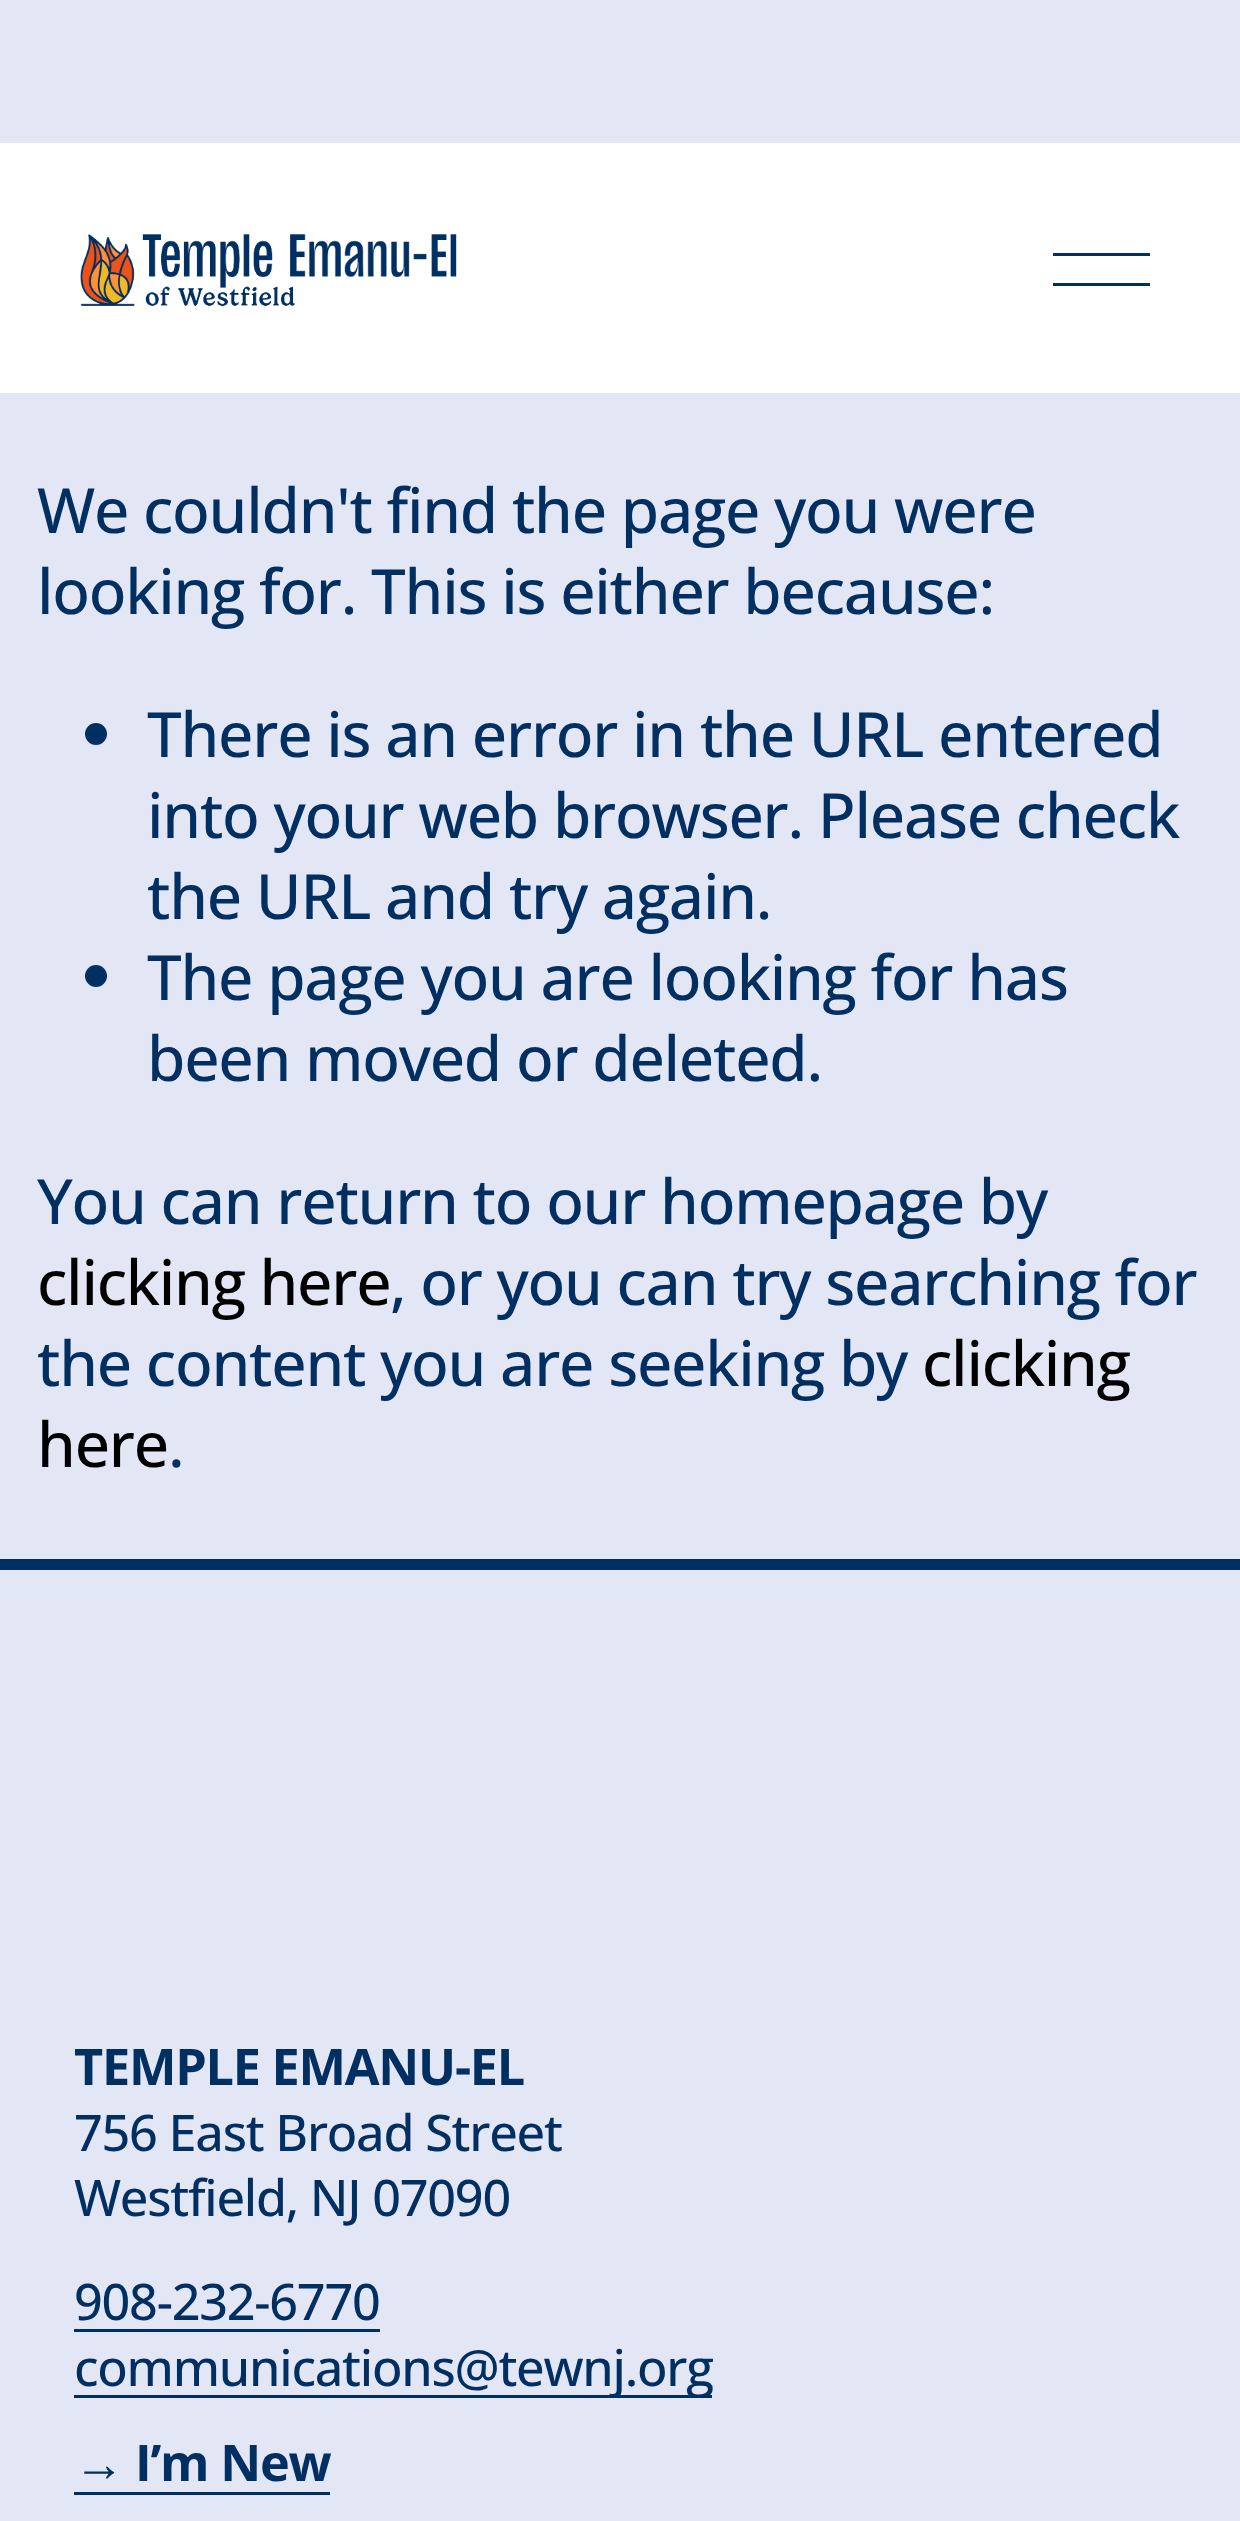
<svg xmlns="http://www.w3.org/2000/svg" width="1240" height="2521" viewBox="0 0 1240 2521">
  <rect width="100%" height="100%" fill="#e3e7f5"/>
  <path d="M0 143h1240v250H0z" fill="#fff"/>
  <image x="80" y="234" width="377" height="72" href="img/1.png"/>
  <path d="M1053 253h97v3H1053z" fill="#012f62"/>
  <path d="M1053 283h97v3H1053z" fill="#012f62"/>
  <circle cx="96" cy="734" r="11" fill="#012f62"/>
  <circle cx="96" cy="976" r="11" fill="#012f62"/>
  <path d="M0 1559h1240v11H0z" fill="#012f62"/>
  <path d="M74 2329h306v3H74z" fill="#012f62"/>
  <path d="M74 2395h638v3H74z" fill="#012f62"/>
  <path d="M74 2492h256v3H74z" fill="#012f62"/>
  <g font-family="Open Sans" font-size="62.25" font-weight="500" letter-spacing="-1.25" fill="#012f62">
    <text x="37" y="533">We couldn't find the page you were</text>
    <text x="37" y="614">looking for. This is either because:</text>
    <text x="147" y="757">There is an error in the URL entered</text>
    <text x="147" y="838">into your web browser. Please check</text>
    <text x="147" y="919">the URL and try again.</text>
    <text x="147" y="1000">The page you are looking for has</text>
    <text x="147" y="1081">been moved or deleted.</text>
    <text x="37" y="1224">You can return to our homepage by</text>
  </g>
  <text x="37" y="1305" font-family="Open Sans" font-size="62.25" font-weight="500" letter-spacing="-1.25" fill="#000">clicking here</text>
  <g font-family="Open Sans" font-size="62.25" font-weight="500" letter-spacing="-1.25" fill="#012f62">
    <text x="390" y="1305">, or you can try searching for</text>
    <text x="37" y="1386">the content you are seeking by</text>
  </g>
  <g font-family="Open Sans" font-size="62.25" font-weight="500" letter-spacing="-1.25" fill="#000">
    <text x="922" y="1386">clicking</text>
    <text x="37" y="1467">here</text>
  </g>
  <text x="168" y="1467" font-family="Open Sans" font-size="62.25" font-weight="500" letter-spacing="-1.25" fill="#012f62">.</text>
  <text x="74" y="2085" font-family="Open Sans" font-size="50.4" font-weight="bold" letter-spacing="-1.25" fill="#012f62">TEMPLE EMANU-EL</text>
  <g font-family="Open Sans" font-size="50.4" font-weight="500" letter-spacing="-1.25" fill="#012f62">
    <text x="74" y="2151">756 East Broad Street</text>
    <text x="74" y="2216">Westfield, NJ 07090</text>
    <text x="74" y="2320">908-232-6770</text>
    <text x="74" y="2386">communications@tewnj.org</text>
  </g>
  <text x="74" y="2481" font-family="Liberation Serif" font-size="50.4" font-weight="bold" letter-spacing="-1.25" fill="#012f62">→</text>
  <text x="135" y="2481" font-family="Open Sans" font-size="50.4" font-weight="bold" letter-spacing="-1.25" fill="#012f62">I’m New</text>
</svg>
